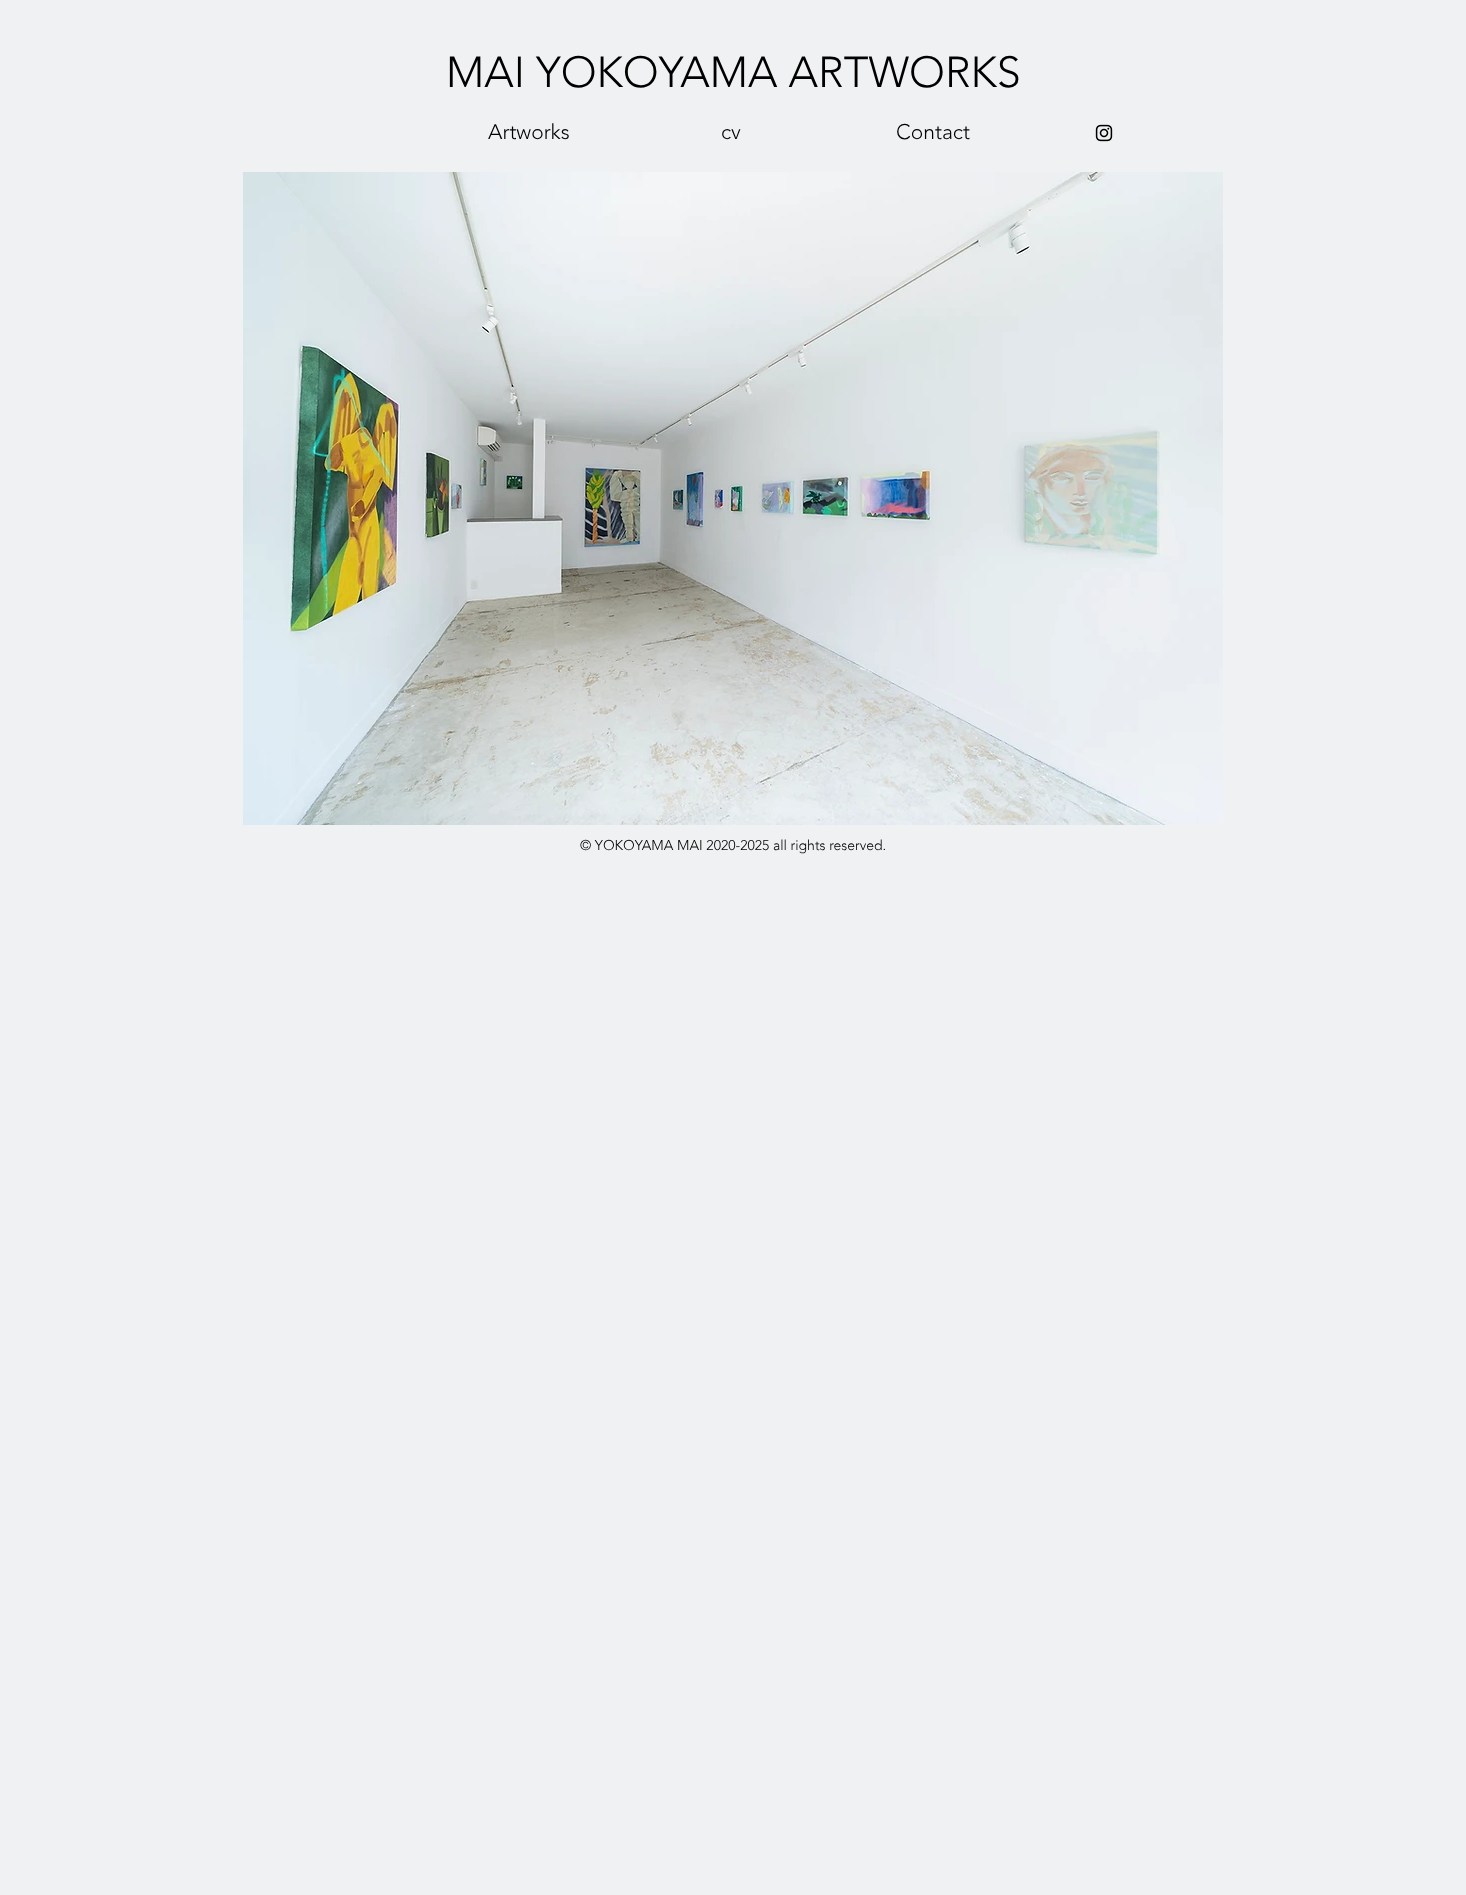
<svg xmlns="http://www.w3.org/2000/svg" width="1466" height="1895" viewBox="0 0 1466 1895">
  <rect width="100%" height="100%" fill="#f0f1f2"/>
  <image x="1095" y="124" width="18" height="18" href="img/1.png"/>
  <image x="243" y="172" width="980" height="653" href="img/2.png"/>
  <text x="446" y="87" font-family="'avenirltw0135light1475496'" font-size="43" font-weight="300" fill="#000">MAI YOKOYAMA ARTWORKS</text>
  <g font-family="'avenirltw0135light1475496'" font-size="21" font-weight="300" fill="#000">
    <text x="488" y="139">Artworks</text>
    <text x="721" y="139">cv</text>
    <text x="896" y="139">Contact</text>
  </g>
  <text x="580" y="850" font-family="'avenirltw0135light1475496'" font-size="14" font-weight="300" fill="#000">© YOKOYAMA MAI 2020-2025 all rights reserved.</text>
</svg>
